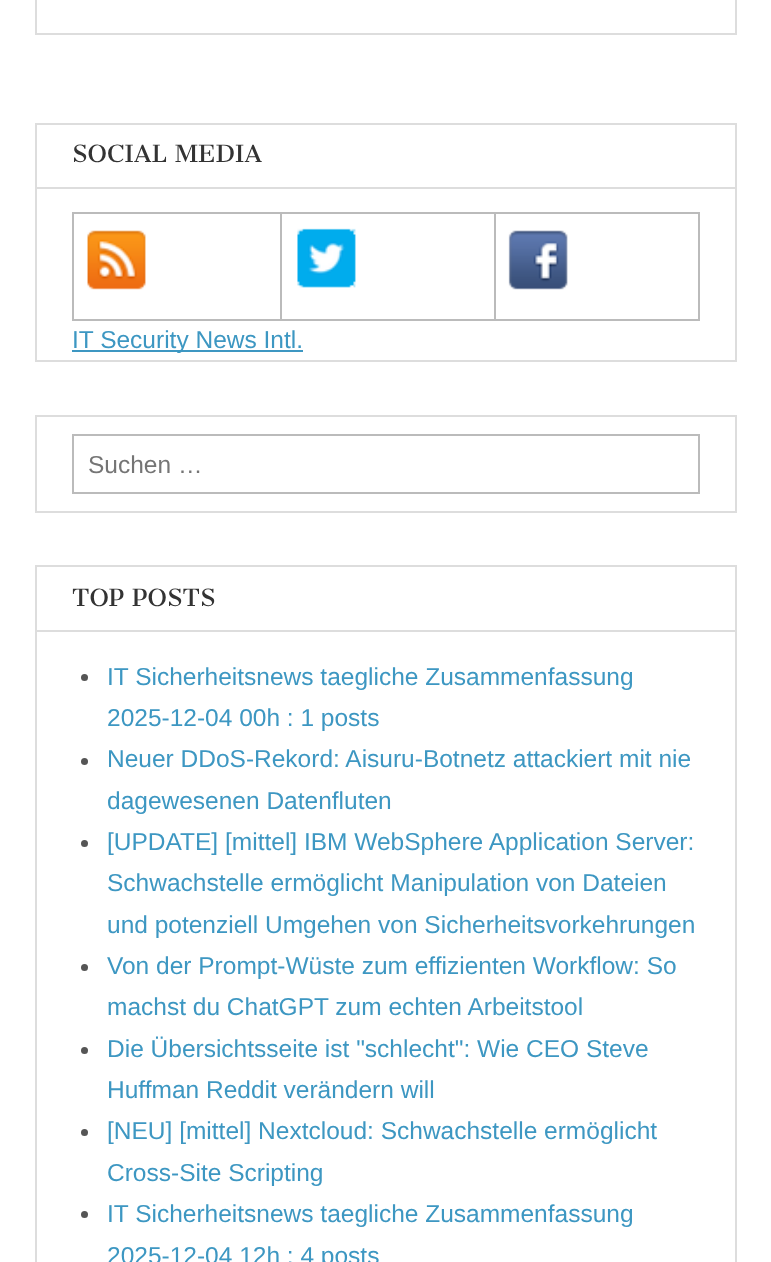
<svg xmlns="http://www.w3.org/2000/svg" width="771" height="1262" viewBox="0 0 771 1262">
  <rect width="100%" height="100%" fill="#fff"/>
  <path d="M36 -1h700v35H36z" fill="none" stroke="#ddd" stroke-width="2"/>
  <path d="M36 124h700v237H36z" fill="none" stroke="#ddd" stroke-width="2"/>
  <path d="M37 187h698v2H37z" fill="#ddd"/>
  <path d="M494 212h206v2H494z" fill="#bbb"/>
  <path d="M698 212h2v108H698z" fill="#bbb"/>
  <path d="M494 319h206v2H494z" fill="#bbb"/>
  <path d="M494 212h2v108H494z" fill="#bbb"/>
  <path d="M280 212h215v2H280z" fill="#bbb"/>
  <path d="M280 319h215v2H280z" fill="#bbb"/>
  <path d="M280 212h2v108H280z" fill="#bbb"/>
  <path d="M72 212h210v2H72z" fill="#bbb"/>
  <path d="M72 319h210v2H72z" fill="#bbb"/>
  <path d="M72 212h2v108H72z" fill="#bbb"/>
  <image x="87" y="230" width="59" height="60" href="img/1.png"/>
  <image x="297" y="228" width="59" height="60" href="img/2.png"/>
  <image x="508" y="230" width="60" height="60" href="img/3.png"/>
  <path d="M72 350h231v2H72z" fill="#3d97c2"/>
  <path d="M36 416h700v96H36z" fill="none" stroke="#ddd" stroke-width="2"/>
  <path d="M73 435h626v58H73z" fill="none" stroke="#bbb" stroke-width="2"/>
  <path d="M36 566h700v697H36z" fill="none" stroke="#ddd" stroke-width="2"/>
  <path d="M37 630h698v2H37z" fill="#ddd"/>
  <circle cx="84.5" cy="677.5" r="3.5" fill="#555"/>
  <circle cx="84.5" cy="761.5" r="3.5" fill="#555"/>
  <circle cx="84.5" cy="843.5" r="3.5" fill="#555"/>
  <circle cx="84.5" cy="967.5" r="3.5" fill="#555"/>
  <circle cx="84.5" cy="1050.5" r="3.5" fill="#555"/>
  <circle cx="84.5" cy="1132.5" r="3.5" fill="#555"/>
  <circle cx="84.5" cy="1214.5" r="3.5" fill="#555"/>
  <text x="72" y="162" font-family="Cantata One" font-size="23.25" fill="#333">SOCIAL MEDIA</text>
  <text x="72" y="348" font-family="Liberation Sans" font-size="24.5" fill="#3d97c2">IT Security News Intl.</text>
  <text x="88" y="473" font-family="Liberation Sans" font-size="24.5" fill="#757575">Suchen …</text>
  <text x="72" y="606" font-family="Cantata One" font-size="23.25" fill="#333">TOP POSTS</text>
  <g font-family="Liberation Sans" font-size="24.5" fill="#3d97c2">
    <text x="107" y="685">IT Sicherheitsnews taegliche Zusammenfassung</text>
    <text x="107" y="726">2025-12-04 00h : 1 posts</text>
    <text x="107" y="767">Neuer DDoS-Rekord: Aisuru-Botnetz attackiert mit nie</text>
    <text x="107" y="809">dagewesenen Datenfluten</text>
    <text x="107" y="850">[UPDATE] [mittel] IBM WebSphere Application Server:</text>
    <text x="107" y="891">Schwachstelle ermöglicht Manipulation von Dateien</text>
    <text x="107" y="933">und potenziell Umgehen von Sicherheitsvorkehrungen</text>
    <text x="107" y="974">Von der Prompt-Wüste zum effizienten Workflow: So</text>
    <text x="107" y="1015">machst du ChatGPT zum echten Arbeitstool</text>
    <text x="107" y="1057">Die Übersichtsseite ist "schlecht": Wie CEO Steve</text>
    <text x="107" y="1098">Huffman Reddit verändern will</text>
    <text x="107" y="1139">[NEU] [mittel] Nextcloud: Schwachstelle ermöglicht</text>
    <text x="107" y="1181">Cross-Site Scripting</text>
    <text x="107" y="1222">IT Sicherheitsnews taegliche Zusammenfassung</text>
    <text x="107" y="1264">2025-12-04 12h : 4 posts</text>
  </g>
</svg>
